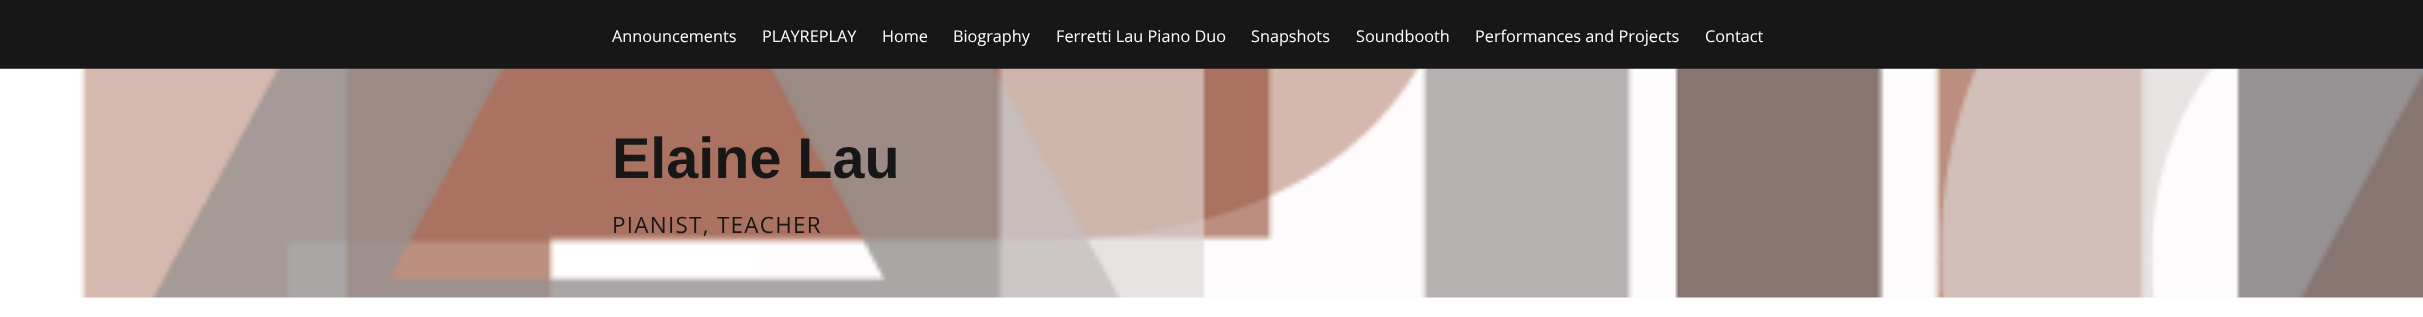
<svg xmlns="http://www.w3.org/2000/svg" width="2423" height="317" viewBox="0 0 2423 317">
  <rect width="100%" height="100%" fill="#171717"/>
  <path d="M0 297h2423v20H0z" fill="#fff"/>
  <image x="0" y="68" width="2423" height="230" href="img/1.png"/>
  <g font-family="Open Sans" font-size="16.25" fill="#fff">
    <text x="612" y="42">Announcements</text>
    <text x="762" y="42">PLAYREPLAY</text>
    <text x="882" y="42">Home</text>
    <text x="953" y="42">Biography</text>
    <text x="1056" y="42">Ferretti Lau Piano Duo</text>
    <text x="1251" y="42">Snapshots</text>
    <text x="1356" y="42">Soundbooth</text>
    <text x="1475" y="42">Performances and Projects</text>
    <text x="1705" y="42">Contact</text>
  </g>
  <text x="612" y="178" font-family="Liberation Sans" font-size="57.5" font-weight="bold" fill="#171717">Elaine Lau</text>
  <text x="612" y="233" font-family="Open Sans" font-size="22.5" letter-spacing="1.25" fill="#171717">PIANIST, TEACHER</text>
</svg>
